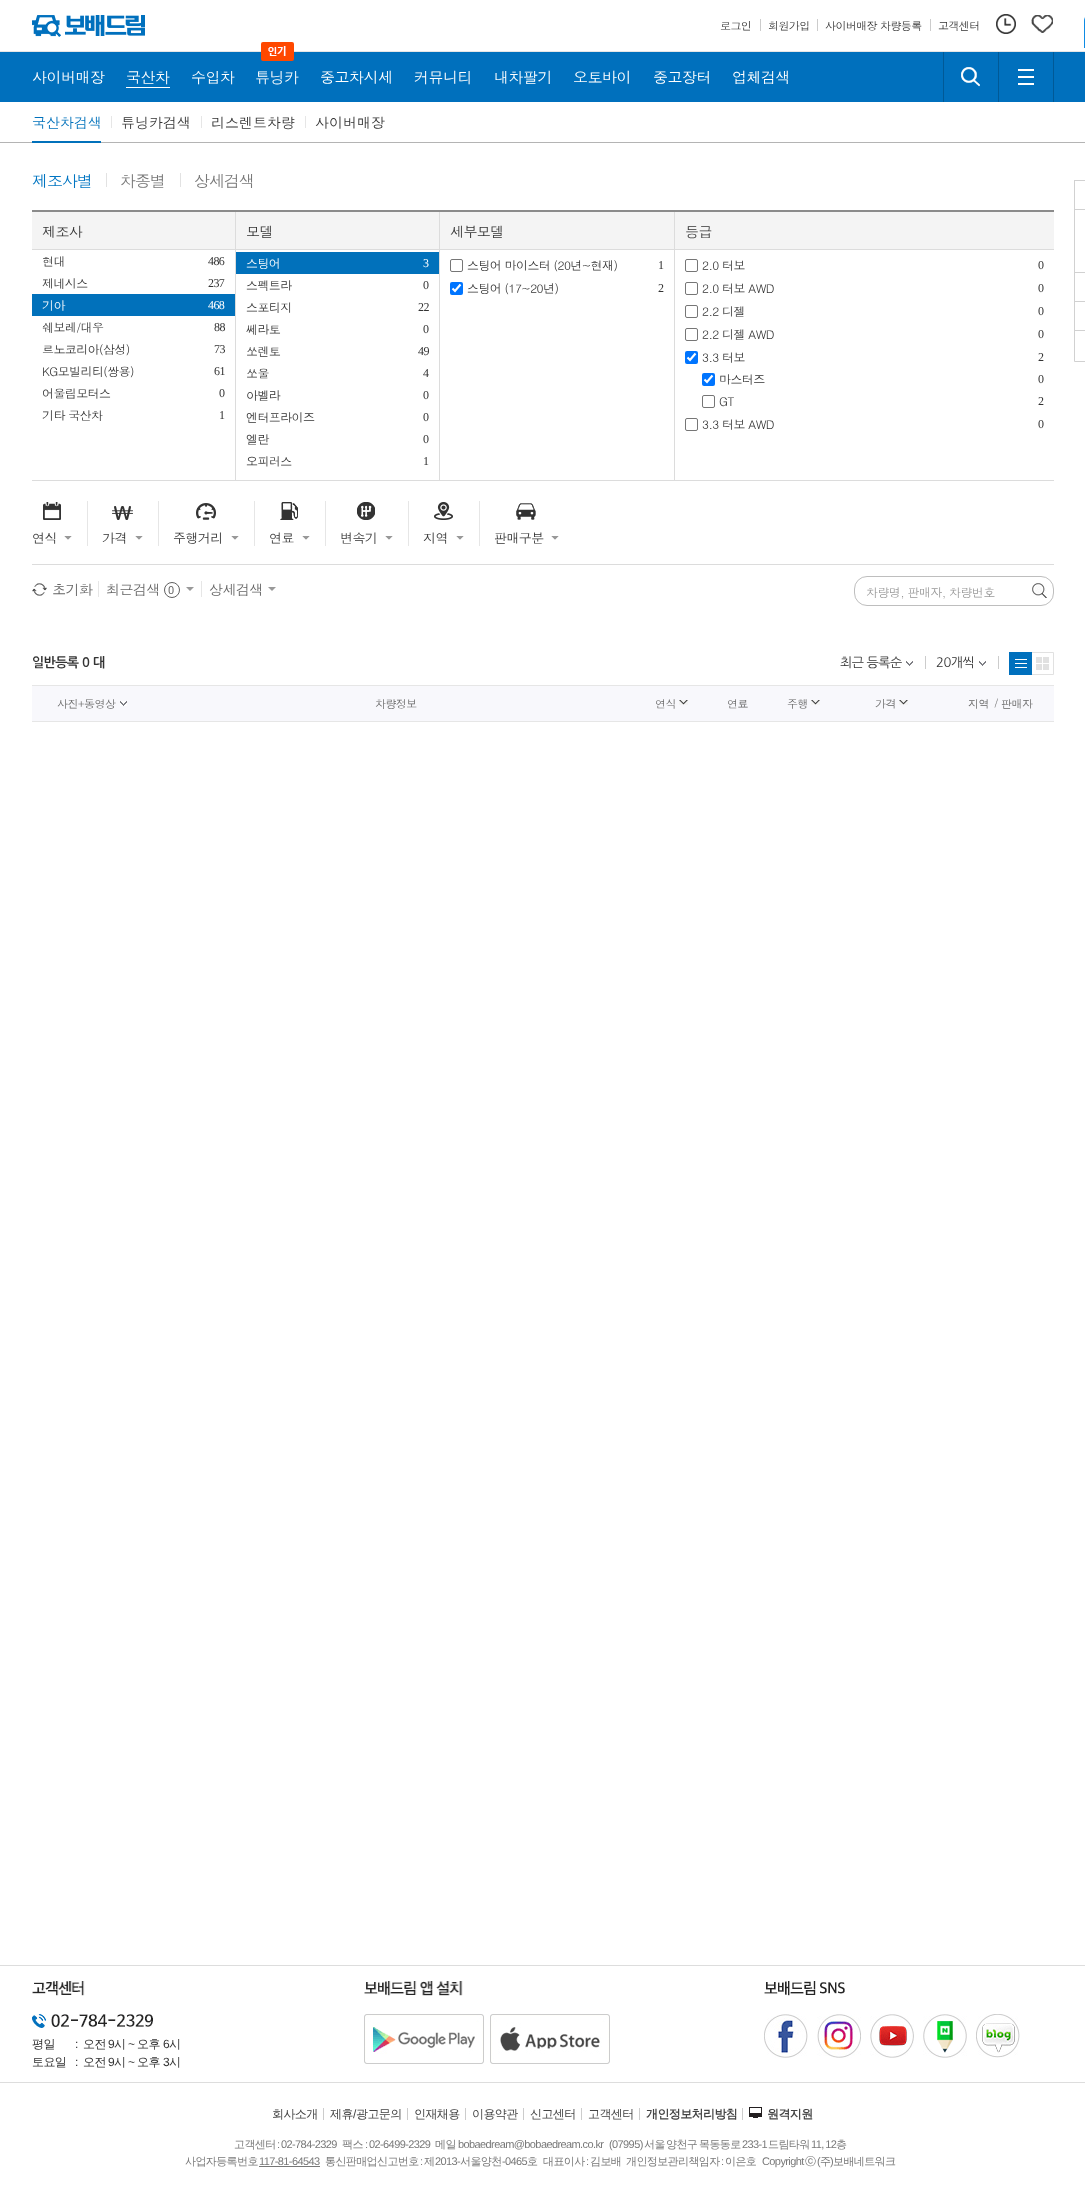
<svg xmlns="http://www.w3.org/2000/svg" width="1085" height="2188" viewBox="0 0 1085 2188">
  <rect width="100%" height="100%" fill="#fff"/>
  <path d="M0 51h1085v1H0z" fill="#e6e6e6"/>
  <image x="32" y="15" width="29" height="22" href="img/1.png"/>
  <image x="65" y="15" width="80" height="21" href="img/2.png"/>
  <path d="M760 19h1v12H760z" fill="#ccc"/>
  <path d="M817 19h1v12H817z" fill="#ccc"/>
  <path d="M930 19h1v12H930z" fill="#ccc"/>
  <image x="996" y="14" width="20" height="20" href="img/3.png"/>
  <image x="1031" y="15" width="22" height="18" href="img/4.png"/>
  <image x="1084" y="17" width="1" height="31" href="img/5.png"/>
  <path d="M0 52h1085v50H0z" fill="#0070bd"/>
  <path d="M126 87h44v1H126z" fill="#fff"/>
  <image x="261" y="42" width="33" height="19" href="img/6.png"/>
  <path d="M998 52h1v50H998z" fill="#005996"/>
  <path d="M943 52h1v50H943z" fill="#005996"/>
  <image x="961" y="67" width="19" height="20" href="img/7.png"/>
  <path d="M1053 52h1v50H1053z" fill="#005996"/>
  <image x="1018" y="69" width="16" height="16" href="img/8.png"/>
  <path d="M0 142h1085v1H0z" fill="#b4b4b4"/>
  <path d="M32 141h69v2H32z" fill="#0171bb"/>
  <path d="M111 116h1v12H111z" fill="#e6e6e6"/>
  <path d="M201 116h1v12H201z" fill="#e6e6e6"/>
  <path d="M305 116h1v12H305z" fill="#e6e6e6"/>
  <path d="M106 173h1v14H106z" fill="#e2e2e2"/>
  <path d="M180 173h1v14H180z" fill="#e2e2e2"/>
  <path d="M32 210h1022v2H32z" fill="#8b8b8b"/>
  <path d="M235 212h1v268H235z" fill="#dcdcdc"/>
  <path d="M32 212h203v37H32z" fill="#f4f4f4"/>
  <path d="M32 249h203v1H32z" fill="#dcdcdc"/>
  <path d="M32 294h203v22H32z" fill="#0171bb"/>
  <path d="M439 212h1v268H439z" fill="#dcdcdc"/>
  <path d="M236 212h203v37H236z" fill="#f4f4f4"/>
  <path d="M236 249h203v1H236z" fill="#dcdcdc"/>
  <path d="M236 252h203v22H236z" fill="#0171bb"/>
  <path d="M674 212h1v268H674z" fill="#dcdcdc"/>
  <path d="M440 212h234v37H440z" fill="#f4f4f4"/>
  <path d="M440 249h234v1H440z" fill="#dcdcdc"/>
  <rect x="450.5" y="259.5" width="12" height="12" rx="1.5" fill="none" stroke="#767676"/>
  <rect x="450" y="282" width="13" height="13" rx="2" fill="#0075ff"/>
  <path d="M452.5 288.5L455 291L460.5 284.5" fill="none" stroke="#fff" stroke-width="2.1"/>
  <path d="M675 212h379v37H675z" fill="#f4f4f4"/>
  <path d="M675 249h379v1H675z" fill="#dcdcdc"/>
  <rect x="685.5" y="259.5" width="12" height="12" rx="1.5" fill="none" stroke="#767676"/>
  <rect x="685.5" y="282.5" width="12" height="12" rx="1.5" fill="none" stroke="#767676"/>
  <rect x="685.5" y="305.5" width="12" height="12" rx="1.5" fill="none" stroke="#767676"/>
  <rect x="685.5" y="328.5" width="12" height="12" rx="1.5" fill="none" stroke="#767676"/>
  <rect x="685" y="351" width="13" height="13" rx="2" fill="#0075ff"/>
  <path d="M687.5 357.5L690 360L695.5 353.5" fill="none" stroke="#fff" stroke-width="2.1"/>
  <rect x="702" y="373" width="13" height="13" rx="2" fill="#0075ff"/>
  <path d="M704.5 379.5L707 382L712.5 375.5" fill="none" stroke="#fff" stroke-width="2.1"/>
  <rect x="702.5" y="395.5" width="12" height="12" rx="1.5" fill="none" stroke="#767676"/>
  <rect x="685.5" y="418.5" width="12" height="12" rx="1.5" fill="none" stroke="#767676"/>
  <path d="M32 480h1022v1H32z" fill="#dcdcdc"/>
  <path d="M32 564h1022v1H32z" fill="#dcdcdc"/>
  <image x="43" y="502" width="18" height="18" href="img/9.png"/>
  <path d="M64 536H72L68 540Z" fill="#999"/>
  <path d="M72 536V544L68 540ZM64 544V536L68 540Z" fill="#fff"/>
  <path d="M87 501h1v45H87z" fill="#e6e6e6"/>
  <image x="112" y="506" width="21" height="14" href="img/10.png"/>
  <path d="M135 536H143L139 540Z" fill="#999"/>
  <path d="M143 536V544L139 540ZM135 544V536L139 540Z" fill="#fff"/>
  <path d="M158 501h1v45H158z" fill="#e6e6e6"/>
  <image x="196" y="503" width="20" height="17" href="img/11.png"/>
  <path d="M231 536H239L235 540Z" fill="#999"/>
  <path d="M239 536V544L235 540ZM231 544V536L235 540Z" fill="#fff"/>
  <path d="M254 501h1v45H254z" fill="#e6e6e6"/>
  <image x="280" y="502" width="18" height="18" href="img/12.png"/>
  <path d="M302 536H310L306 540Z" fill="#999"/>
  <path d="M310 536V544L306 540ZM302 544V536L306 540Z" fill="#fff"/>
  <path d="M325 501h1v45H325z" fill="#e6e6e6"/>
  <image x="357" y="502" width="18" height="18" href="img/13.png"/>
  <path d="M385 536H393L389 540Z" fill="#999"/>
  <path d="M393 536V544L389 540ZM385 544V536L389 540Z" fill="#fff"/>
  <path d="M408 501h1v45H408z" fill="#e6e6e6"/>
  <image x="434" y="502" width="19" height="18" href="img/14.png"/>
  <path d="M456 536H464L460 540Z" fill="#999"/>
  <path d="M464 536V544L460 540ZM456 544V536L460 540Z" fill="#fff"/>
  <path d="M479 501h1v45H479z" fill="#e6e6e6"/>
  <image x="516" y="503" width="20" height="17" href="img/15.png"/>
  <path d="M551 536H559L555 540Z" fill="#999"/>
  <path d="M559 536V544L555 540ZM551 544V536L555 540Z" fill="#fff"/>
  <rect x="854.5" y="576.5" width="199" height="29" rx="12.5" fill="none" stroke="#bebebe"/>
  <image x="1032" y="583" width="15" height="15" href="img/16.png"/>
  <image x="32" y="583" width="15" height="13" href="img/17.png"/>
  <path d="M98 581h1v16H98z" fill="#e6e6e6"/>
  <circle cx="172" cy="590" r="7.5" fill="none" stroke="#606060"/>
  <path d="M186 587H194L190 591Z" fill="#999"/>
  <path d="M201 581h1v16H201z" fill="#e6e6e6"/>
  <path d="M268 587H276L272 591Z" fill="#999"/>
  <path d="M1074.5 330.5h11v31H1074.5z" fill="none" stroke="#d1d1d1"/>
  <path d="M1074 180h1v151H1074z" fill="#d1d1d1"/>
  <path d="M1075 180h10v1H1075z" fill="#d1d1d1"/>
  <path d="M1075 209h10v1H1075z" fill="#d1d1d1"/>
  <path d="M1075 272h10v1H1075z" fill="#d1d1d1"/>
  <path d="M1075 301h10v1H1075z" fill="#d1d1d1"/>
  <image x="906" y="661" width="7" height="5" href="img/18.png"/>
  <path d="M925 656h1v13H925z" fill="#ccc"/>
  <image x="979" y="661" width="7" height="5" href="img/18.png"/>
  <path d="M998 656h1v13H998z" fill="#ccc"/>
  <path d="M1031.5 652.5h22v22H1031.5z" fill="none" stroke="#e1e1e1"/>
  <path d="M1009 652h23v23H1009z" fill="#0070bd"/>
  <image x="1015" y="659" width="12" height="9" href="img/19.png"/>
  <image x="1036" y="657" width="13" height="13" href="img/20.png"/>
  <path d="M32 686h1022v35H32z" fill="#f8f8fc"/>
  <path d="M32 685h1022v1H32z" fill="#e6e6e6"/>
  <path d="M32 721h1022v1H32z" fill="#e6e6e6"/>
  <image x="120" y="701" width="7" height="5" href="img/18.png"/>
  <image x="679" y="700" width="9" height="5" href="img/21.png"/>
  <image x="811" y="700" width="9" height="5" href="img/21.png"/>
  <image x="899" y="700" width="9" height="5" href="img/21.png"/>
  <path d="M0 1965h1085v1H0z" fill="#ddd"/>
  <image x="32" y="1981" width="53" height="15" href="img/22.png"/>
  <image x="32" y="2014" width="121" height="14" href="img/23.png"/>
  <image x="364" y="1981" width="99" height="15" href="img/24.png"/>
  <image x="364" y="2014" width="120" height="50" href="img/25.png"/>
  <image x="490" y="2014" width="120" height="50" href="img/26.png"/>
  <image x="764" y="1981" width="81" height="15" href="img/27.png"/>
  <image x="764" y="2014" width="44" height="44" href="img/28.png"/>
  <image x="817" y="2014" width="44" height="44" href="img/29.png"/>
  <image x="870" y="2014" width="44" height="44" href="img/30.png"/>
  <image x="923" y="2014" width="44" height="44" href="img/31.png"/>
  <image x="976" y="2014" width="44" height="44" href="img/32.png"/>
  <path d="M0 2082h1085v1H0z" fill="#ddd"/>
  <path d="M323 2108h1v12H323z" fill="#ccc"/>
  <path d="M407 2108h1v12H407z" fill="#ccc"/>
  <path d="M465 2108h1v12H465z" fill="#ccc"/>
  <path d="M523 2108h1v12H523z" fill="#ccc"/>
  <path d="M581 2108h1v12H581z" fill="#ccc"/>
  <path d="M639 2108h1v12H639z" fill="#ccc"/>
  <path d="M742 2108h1v12H742z" fill="#ccc"/>
  <image x="749" y="2107" width="13" height="11" href="img/33.png"/>
  <path d="M259 2166h61v1H259z" fill="#777"/>
  <g font-family="Dotum" font-size="11" letter-spacing="-0.6" fill="#333">
    <text x="720" y="30">로그인</text>
    <text x="768" y="30">회원가입</text>
    <text x="825" y="30">사이버매장 차량등록</text>
    <text x="938" y="30">고객센터</text>
  </g>
  <g font-family="Dotum" font-size="15" letter-spacing="-0.5" fill="#fff">
    <text x="32" y="83">사이버매장</text>
    <text x="126" y="83">국산차</text>
    <text x="191" y="83">수입차</text>
    <text x="255" y="83">튜닝카</text>
    <text x="320" y="83">중고차시세</text>
    <text x="414" y="83">커뮤니티</text>
    <text x="494" y="83">내차팔기</text>
    <text x="573" y="83">오토바이</text>
    <text x="653" y="83">중고장터</text>
    <text x="732" y="83">업체검색</text>
  </g>
  <text x="32" y="128" font-family="Dotum" font-size="14" fill="#0171bb">국산차검색</text>
  <g font-family="Dotum" font-size="14" fill="#333">
    <text x="121" y="128">튜닝카검색</text>
    <text x="211" y="128">리스렌트차량</text>
    <text x="315" y="128">사이버매장</text>
  </g>
  <text x="32" y="187" font-family="Dotum" font-size="16" letter-spacing="-1" fill="#0175c2">제조사별</text>
  <g font-family="Dotum" font-size="16" letter-spacing="-1" fill="#797979">
    <text x="120" y="187">차종별</text>
    <text x="194" y="187">상세검색</text>
  </g>
  <text x="42" y="237" font-family="Dotum" font-size="14" letter-spacing="-0.6" fill="#333">제조사</text>
  <text x="42" y="266" font-family="Dotum" font-size="12" letter-spacing="-0.6" fill="#333">현대</text>
  <text x="208" y="265" font-family="Liberation Serif" font-size="12" letter-spacing="-0.6" fill="#333">486</text>
  <text x="42" y="288" font-family="Dotum" font-size="12" letter-spacing="-0.6" fill="#333">제네시스</text>
  <text x="208" y="287" font-family="Liberation Serif" font-size="12" letter-spacing="-0.6" fill="#333">237</text>
  <text x="42" y="310" font-family="Dotum" font-size="12" letter-spacing="-0.6" fill="#fff">기아</text>
  <text x="208" y="309" font-family="Liberation Serif" font-size="12" letter-spacing="-0.6" fill="#fff">468</text>
  <text x="42" y="332" font-family="Dotum" font-size="12" letter-spacing="-0.6" fill="#333">쉐보레/대우</text>
  <text x="214" y="331" font-family="Liberation Serif" font-size="12" letter-spacing="-0.6" fill="#333">88</text>
  <text x="42" y="354" font-family="Dotum" font-size="12" letter-spacing="-0.6" fill="#333">르노코리아(삼성)</text>
  <text x="214" y="353" font-family="Liberation Serif" font-size="12" letter-spacing="-0.6" fill="#333">73</text>
  <text x="42" y="376" font-family="Dotum" font-size="12" letter-spacing="-0.6" fill="#333">KG모빌리티(쌍용)</text>
  <text x="214" y="375" font-family="Liberation Serif" font-size="12" letter-spacing="-0.6" fill="#333">61</text>
  <text x="42" y="398" font-family="Dotum" font-size="12" letter-spacing="-0.6" fill="#333">어울림모터스</text>
  <text x="219" y="397" font-family="Liberation Serif" font-size="12" letter-spacing="-0.6" fill="#333">0</text>
  <text x="42" y="420" font-family="Dotum" font-size="12" letter-spacing="-0.6" fill="#333">기타 국산차</text>
  <text x="219" y="419" font-family="Liberation Serif" font-size="12" letter-spacing="-0.6" fill="#333">1</text>
  <text x="246" y="237" font-family="Dotum" font-size="14" letter-spacing="-0.6" fill="#333">모델</text>
  <text x="246" y="268" font-family="Dotum" font-size="12" letter-spacing="-0.6" fill="#fff">스팅어</text>
  <text x="423" y="267" font-family="Liberation Serif" font-size="12" letter-spacing="-0.6" fill="#fff">3</text>
  <text x="246" y="290" font-family="Dotum" font-size="12" letter-spacing="-0.6" fill="#333">스펙트라</text>
  <text x="423" y="289" font-family="Liberation Serif" font-size="12" letter-spacing="-0.6" fill="#333">0</text>
  <text x="246" y="312" font-family="Dotum" font-size="12" letter-spacing="-0.6" fill="#333">스포티지</text>
  <text x="418" y="311" font-family="Liberation Serif" font-size="12" letter-spacing="-0.6" fill="#333">22</text>
  <text x="246" y="334" font-family="Dotum" font-size="12" letter-spacing="-0.6" fill="#333">쎄라토</text>
  <text x="423" y="333" font-family="Liberation Serif" font-size="12" letter-spacing="-0.6" fill="#333">0</text>
  <text x="246" y="356" font-family="Dotum" font-size="12" letter-spacing="-0.6" fill="#333">쏘렌토</text>
  <text x="418" y="355" font-family="Liberation Serif" font-size="12" letter-spacing="-0.6" fill="#333">49</text>
  <text x="246" y="378" font-family="Dotum" font-size="12" letter-spacing="-0.6" fill="#333">쏘울</text>
  <text x="423" y="377" font-family="Liberation Serif" font-size="12" letter-spacing="-0.6" fill="#333">4</text>
  <text x="246" y="400" font-family="Dotum" font-size="12" letter-spacing="-0.6" fill="#333">아벨라</text>
  <text x="423" y="399" font-family="Liberation Serif" font-size="12" letter-spacing="-0.6" fill="#333">0</text>
  <text x="246" y="422" font-family="Dotum" font-size="12" letter-spacing="-0.6" fill="#333">엔터프라이즈</text>
  <text x="423" y="421" font-family="Liberation Serif" font-size="12" letter-spacing="-0.6" fill="#333">0</text>
  <text x="246" y="444" font-family="Dotum" font-size="12" letter-spacing="-0.6" fill="#333">엘란</text>
  <text x="423" y="443" font-family="Liberation Serif" font-size="12" letter-spacing="-0.6" fill="#333">0</text>
  <text x="246" y="466" font-family="Dotum" font-size="12" letter-spacing="-0.6" fill="#333">오피러스</text>
  <text x="423" y="465" font-family="Liberation Serif" font-size="12" letter-spacing="-0.6" fill="#333">1</text>
  <text x="450" y="237" font-family="Dotum" font-size="14" letter-spacing="-0.6" fill="#333">세부모델</text>
  <text x="467" y="270" font-family="Dotum" font-size="12" letter-spacing="-0.6" fill="#333">스팅어 마이스터 (20년~현재)</text>
  <text x="658" y="269" font-family="Liberation Serif" font-size="12" letter-spacing="-0.6" fill="#333">1</text>
  <text x="467" y="293" font-family="Dotum" font-size="12" letter-spacing="-0.6" fill="#333">스팅어 (17~20년)</text>
  <text x="658" y="292" font-family="Liberation Serif" font-size="12" letter-spacing="-0.6" fill="#333">2</text>
  <text x="685" y="237" font-family="Dotum" font-size="14" letter-spacing="-0.6" fill="#333">등급</text>
  <text x="702" y="270" font-family="Dotum" font-size="12" letter-spacing="-0.6" fill="#333">2.0 터보</text>
  <text x="1038" y="269" font-family="Liberation Serif" font-size="12" letter-spacing="-0.6" fill="#333">0</text>
  <text x="702" y="293" font-family="Dotum" font-size="12" letter-spacing="-0.6" fill="#333">2.0 터보 AWD</text>
  <text x="1038" y="292" font-family="Liberation Serif" font-size="12" letter-spacing="-0.6" fill="#333">0</text>
  <text x="702" y="316" font-family="Dotum" font-size="12" letter-spacing="-0.6" fill="#333">2.2 디젤</text>
  <text x="1038" y="315" font-family="Liberation Serif" font-size="12" letter-spacing="-0.6" fill="#333">0</text>
  <text x="702" y="339" font-family="Dotum" font-size="12" letter-spacing="-0.6" fill="#333">2.2 디젤 AWD</text>
  <text x="1038" y="338" font-family="Liberation Serif" font-size="12" letter-spacing="-0.6" fill="#333">0</text>
  <text x="702" y="362" font-family="Dotum" font-size="12" letter-spacing="-0.6" fill="#333">3.3 터보</text>
  <text x="1038" y="361" font-family="Liberation Serif" font-size="12" letter-spacing="-0.6" fill="#333">2</text>
  <text x="719" y="384" font-family="Dotum" font-size="12" letter-spacing="-0.6" fill="#333">마스터즈</text>
  <text x="1038" y="383" font-family="Liberation Serif" font-size="12" letter-spacing="-0.6" fill="#333">0</text>
  <text x="719" y="406" font-family="Dotum" font-size="12" letter-spacing="-0.6" fill="#333">GT</text>
  <text x="1038" y="405" font-family="Liberation Serif" font-size="12" letter-spacing="-0.6" fill="#333">2</text>
  <text x="702" y="429" font-family="Dotum" font-size="12" letter-spacing="-0.6" fill="#333">3.3 터보 AWD</text>
  <text x="1038" y="428" font-family="Liberation Serif" font-size="12" letter-spacing="-0.6" fill="#333">0</text>
  <g font-family="Dotum" font-size="13" letter-spacing="-0.6" fill="#333">
    <text x="32" y="543">연식</text>
    <text x="102" y="543">가격</text>
    <text x="173" y="543">주행거리</text>
    <text x="269" y="543">연료</text>
    <text x="340" y="543">변속기</text>
    <text x="423" y="543">지역</text>
    <text x="494" y="543">판매구분</text>
  </g>
  <text x="866" y="597" font-family="Dotum" font-size="12" letter-spacing="-0.6" fill="#999">차량명, 판매자, 차량번호</text>
  <g font-family="Dotum" font-size="14" letter-spacing="-0.5" fill="#666">
    <text x="52" y="595">초기화</text>
    <text x="106" y="595">최근검색</text>
  </g>
  <text x="168" y="594" font-family="Roboto" font-size="11" letter-spacing="-0.5" fill="#666">0</text>
  <text x="209" y="595" font-family="Dotum" font-size="14" letter-spacing="-0.5" fill="#666">상세검색</text>
  <g font-family="NanumGothic" font-size="13" font-weight="bold" letter-spacing="-0.6" fill="#333">
    <text x="32" y="667">일반등록</text>
    <text x="82" y="667">0</text>
    <text x="93" y="667">대</text>
  </g>
  <g font-family="NanumGothic" font-size="13" letter-spacing="-0.5" fill="#333">
    <text x="840" y="667">최근 등록순</text>
    <text x="936" y="667">20개씩</text>
  </g>
  <text x="57" y="708" font-family="Dotum" font-size="11" letter-spacing="-0.5" fill="#666">사진+동영상</text>
  <text x="375" y="708" font-family="Dotum" font-size="11" letter-spacing="-0.6" fill="#666">차량정보</text>
  <g font-family="Dotum" font-size="11" letter-spacing="-0.5" fill="#666">
    <text x="655" y="708">연식</text>
    <text x="727" y="708">연료</text>
    <text x="787" y="708">주행</text>
    <text x="875" y="708">가격</text>
    <text x="968" y="708">지역</text>
    <text x="994" y="707">/</text>
    <text x="1001" y="708">판매자</text>
  </g>
  <text x="32" y="2048" font-family="WenQuanYi Zen Hei" font-size="12" font-weight="500" letter-spacing="-0.6" fill="#333">평일</text>
  <text x="75" y="2048" font-family="Liberation Sans" font-size="12" letter-spacing="-0.6" fill="#333">:</text>
  <text x="83" y="2048" font-family="WenQuanYi Zen Hei" font-size="12" font-weight="500" letter-spacing="-0.6" fill="#333">오전</text>
  <text x="108" y="2048" font-family="Liberation Sans" font-size="12" letter-spacing="-0.6" fill="#333">9</text>
  <text x="114" y="2048" font-family="WenQuanYi Zen Hei" font-size="12" font-weight="500" letter-spacing="-0.6" fill="#333">시</text>
  <text x="128" y="2048" font-family="Liberation Sans" font-size="12" letter-spacing="-0.6" fill="#333">~</text>
  <text x="137" y="2048" font-family="WenQuanYi Zen Hei" font-size="12" font-weight="500" letter-spacing="-0.6" fill="#333">오후</text>
  <text x="163" y="2048" font-family="Liberation Sans" font-size="12" letter-spacing="-0.6" fill="#333">6</text>
  <g font-family="WenQuanYi Zen Hei" font-size="12" font-weight="500" letter-spacing="-0.6" fill="#333">
    <text x="169" y="2048">시</text>
    <text x="32" y="2066">토요일</text>
  </g>
  <text x="75" y="2066" font-family="Liberation Sans" font-size="12" letter-spacing="-0.6" fill="#333">:</text>
  <text x="83" y="2066" font-family="WenQuanYi Zen Hei" font-size="12" font-weight="500" letter-spacing="-0.6" fill="#333">오전</text>
  <text x="108" y="2066" font-family="Liberation Sans" font-size="12" letter-spacing="-0.6" fill="#333">9</text>
  <text x="114" y="2066" font-family="WenQuanYi Zen Hei" font-size="12" font-weight="500" letter-spacing="-0.6" fill="#333">시</text>
  <text x="128" y="2066" font-family="Liberation Sans" font-size="12" letter-spacing="-0.6" fill="#333">~</text>
  <text x="137" y="2066" font-family="WenQuanYi Zen Hei" font-size="12" font-weight="500" letter-spacing="-0.6" fill="#333">오후</text>
  <text x="163" y="2066" font-family="Liberation Sans" font-size="12" letter-spacing="-0.6" fill="#333">3</text>
  <text x="169" y="2066" font-family="WenQuanYi Zen Hei" font-size="12" font-weight="500" letter-spacing="-0.6" fill="#333">시</text>
  <g font-family="WenQuanYi Zen Hei" font-size="12" font-weight="500" letter-spacing="-0.6" fill="#444">
    <text x="272" y="2118">회사소개</text>
    <text x="330" y="2118">제휴</text>
  </g>
  <text x="353" y="2118" font-family="Liberation Sans" font-size="12" letter-spacing="-0.6" fill="#444">/</text>
  <g font-family="WenQuanYi Zen Hei" font-size="12" font-weight="500" letter-spacing="-0.6" fill="#444">
    <text x="356" y="2118">광고문의</text>
    <text x="414" y="2118">인재채용</text>
    <text x="472" y="2118">이용약관</text>
    <text x="530" y="2118">신고센터</text>
    <text x="588" y="2118">고객센터</text>
  </g>
  <g font-family="WenQuanYi Zen Hei" font-size="12" font-weight="bold" letter-spacing="-0.6" fill="#444">
    <text x="646" y="2118">개인정보처리방침</text>
    <text x="767" y="2118">원격지원</text>
  </g>
  <text x="234" y="2148" font-family="WenQuanYi Zen Hei" font-size="11" font-weight="500" letter-spacing="-0.6" fill="#797979">고객센터</text>
  <g font-family="Liberation Sans" font-size="11" letter-spacing="-0.6" fill="#797979">
    <text x="277" y="2148">:</text>
    <text x="281" y="2148">02-784-2329</text>
  </g>
  <text x="342" y="2148" font-family="WenQuanYi Zen Hei" font-size="11" font-weight="500" letter-spacing="-0.6" fill="#797979">팩스</text>
  <g font-family="Liberation Sans" font-size="11" letter-spacing="-0.6" fill="#797979">
    <text x="365" y="2148">:</text>
    <text x="369" y="2148">02-6499-2329</text>
  </g>
  <text x="435" y="2148" font-family="WenQuanYi Zen Hei" font-size="11" font-weight="500" letter-spacing="-0.6" fill="#797979">메일</text>
  <g font-family="Liberation Sans" font-size="11" letter-spacing="-0.6" fill="#797979">
    <text x="458" y="2148">bobaedream@bobaedream.co.kr</text>
    <text x="609" y="2148">(07995)</text>
  </g>
  <g font-family="WenQuanYi Zen Hei" font-size="11" font-weight="500" letter-spacing="-0.6" fill="#797979">
    <text x="644" y="2148">서울</text>
    <text x="666" y="2148">양천구</text>
    <text x="699" y="2148">목동동로</text>
  </g>
  <text x="742" y="2148" font-family="Liberation Sans" font-size="11" letter-spacing="-0.6" fill="#797979">233-1</text>
  <text x="768" y="2148" font-family="WenQuanYi Zen Hei" font-size="11" font-weight="500" letter-spacing="-0.6" fill="#797979">드림타워</text>
  <text x="811" y="2148" word-spacing="-1" font-family="Liberation Sans" font-size="11" letter-spacing="-0.6" fill="#797979">11, 12</text>
  <g font-family="WenQuanYi Zen Hei" font-size="11" font-weight="500" letter-spacing="-0.6" fill="#797979">
    <text x="836" y="2148">층</text>
    <text x="185" y="2165">사업자등록번호</text>
  </g>
  <text x="259" y="2165" font-family="Liberation Sans" font-size="11" letter-spacing="-0.6" fill="#797979">117-81-64543</text>
  <text x="325" y="2165" font-family="WenQuanYi Zen Hei" font-size="11" font-weight="500" letter-spacing="-0.6" fill="#797979">통신판매업신고번호</text>
  <text x="420" y="2165" font-family="Liberation Sans" font-size="11" letter-spacing="-0.6" fill="#797979">:</text>
  <text x="424" y="2165" font-family="WenQuanYi Zen Hei" font-size="11" font-weight="500" letter-spacing="-0.6" fill="#797979">제</text>
  <text x="435" y="2165" font-family="Liberation Sans" font-size="11" letter-spacing="-0.6" fill="#797979">2013-</text>
  <text x="460" y="2165" font-family="WenQuanYi Zen Hei" font-size="11" font-weight="500" letter-spacing="-0.6" fill="#797979">서울양천</text>
  <text x="502" y="2165" font-family="Liberation Sans" font-size="11" letter-spacing="-0.6" fill="#797979">-0465</text>
  <g font-family="WenQuanYi Zen Hei" font-size="11" font-weight="500" letter-spacing="-0.6" fill="#797979">
    <text x="527" y="2165">호</text>
    <text x="543" y="2165">대표이사</text>
  </g>
  <text x="586" y="2165" font-family="Liberation Sans" font-size="11" letter-spacing="-0.6" fill="#797979">:</text>
  <g font-family="WenQuanYi Zen Hei" font-size="11" font-weight="500" letter-spacing="-0.6" fill="#797979">
    <text x="590" y="2165">김보배</text>
    <text x="626" y="2165">개인정보관리책임자</text>
  </g>
  <text x="721" y="2165" font-family="Liberation Sans" font-size="11" letter-spacing="-0.6" fill="#797979">:</text>
  <text x="725" y="2165" font-family="WenQuanYi Zen Hei" font-size="11" font-weight="500" letter-spacing="-0.6" fill="#797979">이은호</text>
  <text x="762" y="2165" font-family="Liberation Sans" font-size="11" letter-spacing="-0.6" fill="#797979">Copyright</text>
  <text x="805" y="2165" font-family="WenQuanYi Zen Hei" font-size="11" font-weight="500" letter-spacing="-0.6" fill="#797979">ⓒ</text>
  <text x="817" y="2165" font-family="Liberation Sans" font-size="11" letter-spacing="-0.6" fill="#797979">(</text>
  <text x="820" y="2165" font-family="WenQuanYi Zen Hei" font-size="11" font-weight="500" letter-spacing="-0.6" fill="#797979">주</text>
  <text x="830" y="2165" font-family="Liberation Sans" font-size="11" letter-spacing="-0.6" fill="#797979">)</text>
  <text x="833" y="2165" font-family="WenQuanYi Zen Hei" font-size="11" font-weight="500" letter-spacing="-0.6" fill="#797979">보배네트워크</text>
</svg>
